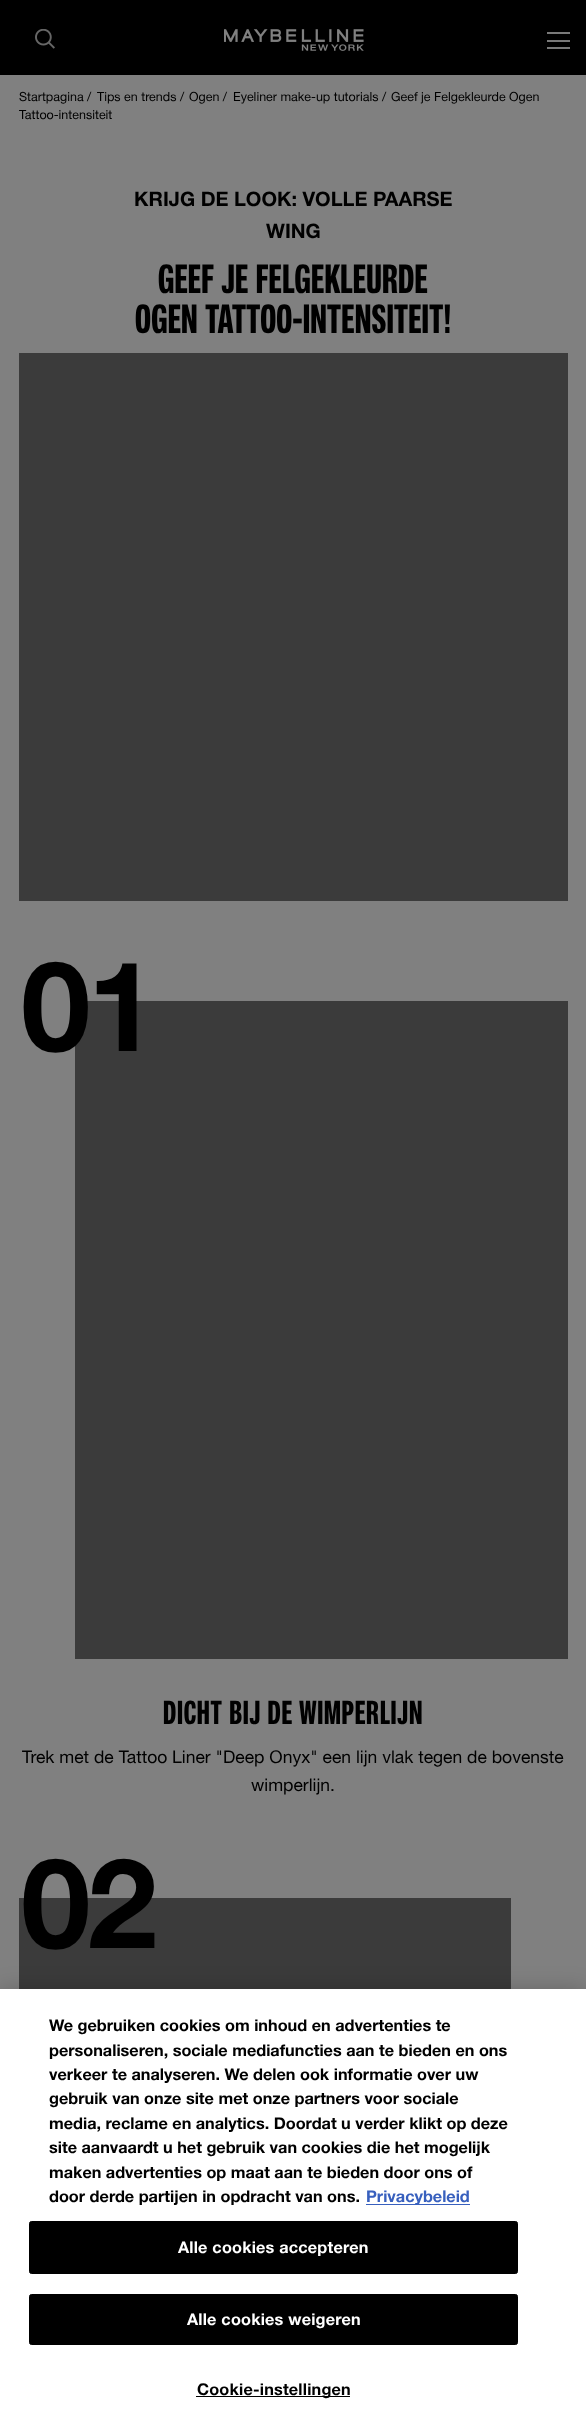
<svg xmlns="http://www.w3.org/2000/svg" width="586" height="2435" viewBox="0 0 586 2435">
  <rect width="100%" height="100%" fill="#808080"/>
  <path d="M0 0h586v75H0z" fill="#000"/>
  <image x="35" y="29" width="20" height="20" href="img/1.png"/>
  <image x="224" y="29" width="140" height="22" href="img/2.png"/>
  <path d="M547 32h23v2H547z" fill="#797979"/>
  <path d="M547 40h23v2H547z" fill="#797979"/>
  <path d="M547 47h23v2H547z" fill="#797979"/>
  <path d="M19 353h549v548H19z" fill="#3b3b3b"/>
  <path d="M75 1001h493v658H75z" fill="#3b3b3b"/>
  <path d="M19 1898h492v91H19z" fill="#3b3b3b"/>
  <path d="M0 1989h586v446H0z" fill="#00000033" filter="blur(11px)"/>
  <path d="M0 1989h586v446H0z" fill="#fff"/>
  <path d="M366 2204h104v1H366z" fill="#3860be"/>
  <rect x="29.5" y="2221.5" width="488" height="52" rx="2" fill="#000" stroke="#000"/>
  <rect x="29.5" y="2294.5" width="488" height="50" rx="2" fill="#000" stroke="#000"/>
  <path d="M196 2396h154v1H196z" fill="#000"/>
  <g font-family="Helvetica Neue" font-size="12.5" fill="#000">
    <text x="19" y="101">Startpagina /</text>
    <text x="97" y="101">Tips en trends /</text>
    <text x="189" y="101">Ogen /</text>
    <text x="233" y="101">Eyeliner make-up tutorials /</text>
    <text x="391" y="101">Geef je Felgekleurde Ogen</text>
    <text x="19" y="119">Tattoo-intensiteit</text>
  </g>
  <g font-family="Helvetica Neue" font-size="20" font-weight="bold" fill="#000">
    <text x="134" y="206">KRIJG DE LOOK: VOLLE PAARSE</text>
    <text x="266" y="238">WING</text>
  </g>
  <g font-family="'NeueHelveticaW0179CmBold'" font-size="40" font-weight="bold" letter-spacing="0.25" fill="#000">
    <text x="158" y="293">GEEF JE FELGEKLEURDE</text>
    <text x="135" y="333">OGEN TATTOO-INTENSITEIT!</text>
  </g>
  <text x="21" y="1051" font-family="Helvetica Neue" font-size="125" font-weight="bold" letter-spacing="-3" fill="#000">01</text>
  <text x="163" y="1724" font-family="'NeueHelveticaW0179CmBold'" font-size="32.5" font-weight="bold" letter-spacing="0.75" fill="#000">DICHT BIJ DE WIMPERLIJN</text>
  <g font-family="Helvetica Neue" font-size="17.5" fill="#000">
    <text x="22" y="1763">Trek met de Tattoo Liner "Deep Onyx" een lijn vlak tegen de bovenste</text>
    <text x="251" y="1791">wimperlijn.</text>
  </g>
  <text x="21" y="1948" font-family="Helvetica Neue" font-size="125" font-weight="bold" letter-spacing="-3" fill="#000">02</text>
  <g font-family="Helvetica Neue" font-size="16.25" font-weight="bold" fill="#000">
    <text x="49" y="2031">We gebruiken cookies om inhoud en advertenties te</text>
    <text x="49" y="2056">personaliseren, sociale mediafuncties aan te bieden en ons</text>
    <text x="49" y="2080">verkeer te analyseren. We delen ook informatie over uw</text>
    <text x="49" y="2104">gebruik van onze site met onze partners voor sociale</text>
    <text x="49" y="2129">media, reclame en analytics. Doordat u verder klikt op deze</text>
    <text x="49" y="2153">site aanvaardt u het gebruik van cookies die het mogelijk</text>
    <text x="49" y="2178">maken advertenties op maat aan te bieden door ons of</text>
    <text x="49" y="2202">door derde partijen in opdracht van ons.</text>
  </g>
  <text x="366" y="2202" font-family="Helvetica Neue" font-size="16.25" font-weight="bold" fill="#3860be">Privacybeleid</text>
  <g font-family="Helvetica Neue" font-size="16.25" font-weight="bold" letter-spacing="0.2" fill="#fff">
    <text x="178" y="2253">Alle cookies accepteren</text>
    <text x="187" y="2325">Alle cookies weigeren</text>
  </g>
  <text x="197" y="2395" font-family="Helvetica Neue" font-size="16.25" font-weight="bold" letter-spacing="0.2" fill="#000">Cookie-instellingen</text>
</svg>
